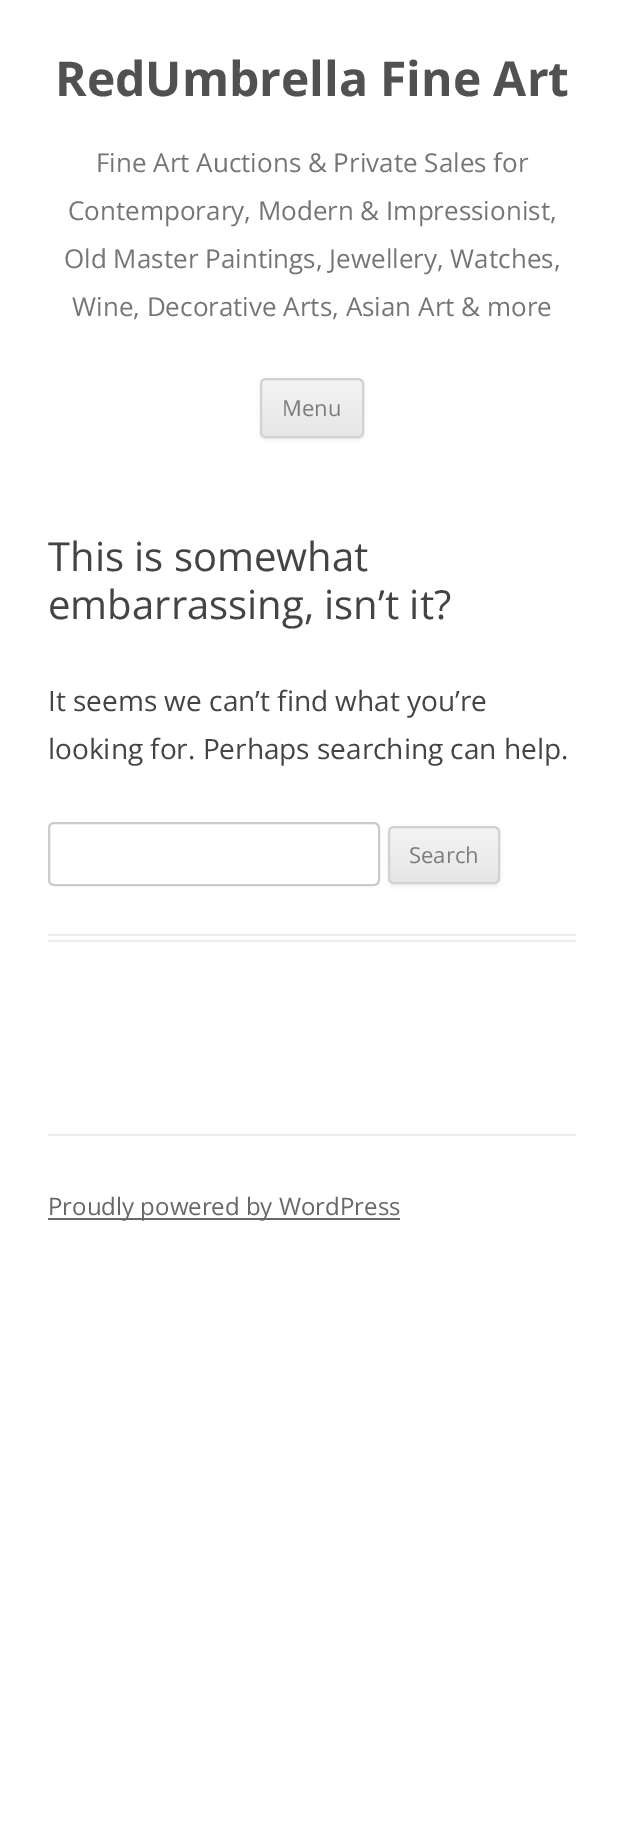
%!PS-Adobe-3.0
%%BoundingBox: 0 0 624 1825
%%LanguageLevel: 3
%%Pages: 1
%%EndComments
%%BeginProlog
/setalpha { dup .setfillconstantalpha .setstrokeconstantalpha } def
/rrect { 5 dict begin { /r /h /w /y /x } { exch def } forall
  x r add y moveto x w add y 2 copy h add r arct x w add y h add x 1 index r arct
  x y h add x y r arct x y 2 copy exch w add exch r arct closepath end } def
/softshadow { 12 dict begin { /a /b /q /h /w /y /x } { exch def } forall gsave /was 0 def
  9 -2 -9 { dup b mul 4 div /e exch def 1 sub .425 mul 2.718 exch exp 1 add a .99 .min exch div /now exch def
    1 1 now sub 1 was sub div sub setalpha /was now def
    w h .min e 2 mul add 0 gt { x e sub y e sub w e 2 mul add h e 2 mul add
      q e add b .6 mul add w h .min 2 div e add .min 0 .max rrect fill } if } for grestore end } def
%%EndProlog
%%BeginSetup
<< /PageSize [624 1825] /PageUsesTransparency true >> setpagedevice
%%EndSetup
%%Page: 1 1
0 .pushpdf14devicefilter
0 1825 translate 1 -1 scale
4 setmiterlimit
1 setgray
0 0 624 1825 rectfill
0.251 setgray
260 380 104 60 6 2 0.1 softshadow
gsave
260 378 104 60 6 rrect clip newpath
gsave newpath 260 380 moveto 364 380 lineto 364 436 lineto 260 436 lineto closepath clip newpath
<< /ShadingType 2 /ColorSpace /DeviceRGB /Coords [312 380 312 436] /Extend [true true] /Function << /FunctionType 2 /Domain [0 1] /C0 [0.957 0.957 0.957] /C1 [0.902 0.902 0.902] /N 1 >> >> shfill grestore
grestore
0.824 setgray
2 setlinewidth
261 379 102 58 5 rrect stroke
0.929 setgray
48 934 528 2 rectfill
48 940 528 2 rectfill
0.8 setgray
49 823 330 62 5 rrect stroke
0.251 setgray
388 828 112 58 6 2 0.1 softshadow
gsave
388 826 112 58 6 rrect clip newpath
gsave newpath 388 828 moveto 500 828 lineto 500 882 lineto 388 882 lineto closepath clip newpath
<< /ShadingType 2 /ColorSpace /DeviceRGB /Coords [444 828 444 882] /Extend [true true] /Function << /FunctionType 2 /Domain [0 1] /C0 [0.957 0.957 0.957] /C1 [0.902 0.902 0.902] /N 1 >> >> shfill grestore
grestore
0.824 setgray
389 827 110 56 5 rrect stroke
0.929 setgray
48 1134 528 2 rectfill
0.408 setgray
48 1218 352 2 rectfill
/OpenSans-Bold [48 0 0 -48 0 0] selectfont
0.318 setgray
55 96 moveto (RedUmbrella Fine Art) show
/OpenSans-Regular [26 0 0 -26 0 0] selectfont
0.459 setgray
96 172 moveto (Fine Art Auctions & Private Sales for) show
68 220 moveto (Contemporary, Modern & Impressionist,) show
64 268 moveto (Old Master Paintings, Jewellery, Watches,) show
72 316 moveto (Wine, Decorative Arts, Asian Art & more) show
/OpenSans-Regular [22 0 0 -22 0 0] selectfont
0.486 setgray
282 416 moveto (Menu) show
/OpenSans-Regular [40 0 0 -40 0 0] selectfont
0.267 setgray
48 571 moveto (This is somewhat) show
48 619 moveto (embarrassing, isn’t it?) show
/OpenSans-Regular [28 0 0 -28 0 0] selectfont
48 711 moveto (It seems we can’t find what you’re) show
48 759 moveto (looking for. Perhaps searching can help.) show
/OpenSans-Regular [22 0 0 -22 0 0] selectfont
0.486 setgray
409 863 moveto (Search) show
/OpenSans-Regular [24 0 0 -24 0 0] selectfont
0.408 setgray
48 1215 moveto (Proudly powered by WordPress) show
.poppdf14devicefilter showpage
%%EOF
